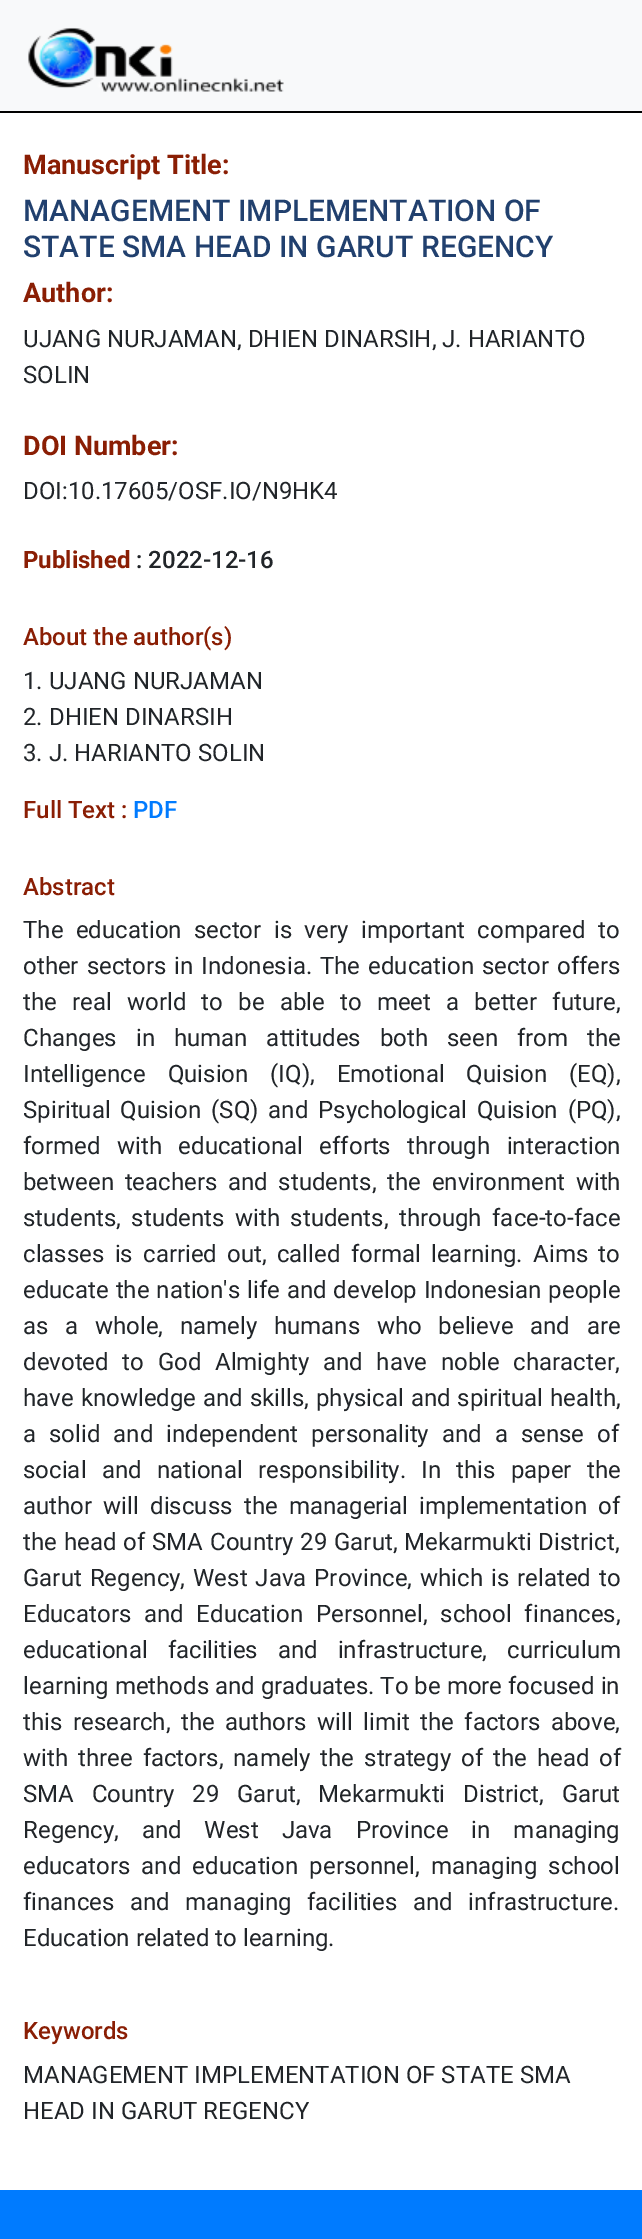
%!PS-Adobe-3.0
%%BoundingBox: 0 0 642 2239
%%LanguageLevel: 3
%%Pages: 1
%%EndComments
%%BeginProlog
/drawimage { 5 dict begin { /h /w /y /x /name } { exch def } forall
  gsave x y translate w h scale
  w h 8 [w 0 0 h 0 0] name (r) file false 3 colorimage grestore end } def
%%EndProlog
%%BeginSetup
<< /PageSize [642 2239] >> setpagedevice
%%EndSetup
%%Page: 1 1
0 2239 translate 1 -1 scale
4 setmiterlimit
1 setgray
0 0 642 2239 rectfill
0.973 0.976 0.98 setrgbcolor
0 0 642 111 rectfill
0 setgray
0 111 642 2 rectfill
(images/1.raw) 28 27 256 65 drawimage
0 0.482 1 setrgbcolor
0 2190 642 49 rectfill
/Roboto-Bold [27 0 0 -27 0 0] selectfont
0.541 0.118 0.016 setrgbcolor
23 174 moveto (Manuscript Title:) show
/Roboto-Medium [30 0 0 -30 0 0] selectfont
0.129 0.251 0.431 setrgbcolor
23 221 moveto (MANAGEMENT IMPLEMENTATION OF) show
23 257 moveto (STATE SMA HEAD IN GARUT REGENCY) show
/Roboto-Bold [27 0 0 -27 0 0] selectfont
0.541 0.118 0.016 setrgbcolor
23 302 moveto (Author:) show
/Roboto-Regular [24 0 0 -24 0 0] selectfont
0.129 0.145 0.161 setrgbcolor
23 347 moveto (UJANG NURJAMAN, DHIEN DINARSIH, J. HARIANTO) show
23 383 moveto (SOLIN) show
/Roboto-Bold [27 0 0 -27 0 0] selectfont
0.541 0.118 0.016 setrgbcolor
23 455 moveto (DOI Number:) show
/Roboto-Regular [24 0 0 -24 0 0] selectfont
0.129 0.145 0.161 setrgbcolor
23 499 moveto (DOI:10.17605/OSF.IO/N9HK4) show
/Roboto-Bold [24 0 0 -24 0 0] selectfont
0.541 0.118 0.016 setrgbcolor
23 568 moveto (Published) show
/Roboto-Medium [24 0 0 -24 0 0] selectfont
0.129 0.145 0.161 setrgbcolor
136 568 moveto (: 2022-12-16) show
0.541 0.118 0.016 setrgbcolor
23 645 moveto (About the author\(s\)) show
/Roboto-Regular [24 0 0 -24 0 0] selectfont
0.129 0.145 0.161 setrgbcolor
23 689 moveto (1. UJANG NURJAMAN) show
23 725 moveto (2. DHIEN DINARSIH) show
23 761 moveto (3. J. HARIANTO SOLIN) show
/Roboto-Medium [24 0 0 -24 0 0] selectfont
0.541 0.118 0.016 setrgbcolor
23 818 moveto (Full Text :) show
0 0.482 1 setrgbcolor
133 818 moveto (PDF) show
0.541 0.118 0.016 setrgbcolor
23 895 moveto (Abstract) show
/Roboto-Regular [24 0 0 -24 0 0] selectfont
0.129 0.145 0.161 setrgbcolor
23 938 moveto 6.5 0 32 (The education sector is very important compared to) widthshow
23 974 moveto 2 0 32 (other sectors in Indonesia. The education sector offers) widthshow
23 1010 moveto 9.25 0 32 (the real world to be able to meet a better future,) widthshow
23 1046 moveto 13 0 32 (Changes in human attitudes both seen from the) widthshow
23 1082 moveto 16 0 32 (Intelligence Quision \(IQ\), Emotional Quision \(EQ\),) widthshow
23 1118 moveto 4 0 32 (Spiritual Quision \(SQ\) and Psychological Quision \(PQ\),) widthshow
23 1154 moveto 10.5 0 32 (formed with educational efforts through interaction) widthshow
23 1190 moveto 4.75 0 32 (between teachers and students, the environment with) widthshow
23 1226 moveto 4.5 0 32 (students, students with students, through face-to-face) widthshow
23 1262 moveto 4.25 0 32 (classes is carried out, called formal learning. Aims to) widthshow
23 1298 moveto 1 0 32 (educate the nation's life and develop Indonesian people) widthshow
23 1334 moveto 10.75 0 32 (as a whole, namely humans who believe and are) widthshow
23 1370 moveto 7.75 0 32 (devoted to God Almighty and have noble character,) widthshow
23 1406 moveto 1 0 32 (have knowledge and skills, physical and spiritual health,) widthshow
23 1442 moveto 7 0 32 (a solid and independent personality and a sense of) widthshow
23 1478 moveto 9.25 0 32 (social and national responsibility. In this paper the) widthshow
23 1514 moveto 5.25 0 32 (author will discuss the managerial implementation of) widthshow
23 1550 moveto 1 0 32 (the head of SMA Country 29 Garut, Mekarmukti District,) widthshow
23 1586 moveto 2 0 32 (Garut Regency, West Java Province, which is related to) widthshow
23 1622 moveto 6.75 0 32 (Educators and Education Personnel, school finances,) widthshow
23 1658 moveto 14 0 32 (educational facilities and infrastructure, curriculum) widthshow
23 1694 moveto (learning methods and graduates. To be more focused in) show
23 1730 moveto 4.5 0 32 (this research, the authors will limit the factors above,) widthshow
23 1766 moveto 4 0 32 (with three factors, namely the strategy of the head of) widthshow
23 1802 moveto 11.75 0 32 (SMA Country 29 Garut, Mekarmukti District, Garut) widthshow
23 1838 moveto 17 0 32 (Regency, and West Java Province in managing) widthshow
23 1874 moveto 5.25 0 32 (educators and education personnel, managing school) widthshow
23 1910 moveto 9.5 0 32 (finances and managing facilities and infrastructure.) widthshow
23 1946 moveto (Education related to learning.) show
/Roboto-Medium [24 0 0 -24 0 0] selectfont
0.541 0.118 0.016 setrgbcolor
23 2039 moveto (Keywords) show
/Roboto-Regular [24 0 0 -24 0 0] selectfont
0.129 0.145 0.161 setrgbcolor
23 2083 moveto (MANAGEMENT IMPLEMENTATION OF STATE SMA) show
23 2119 moveto (HEAD IN GARUT REGENCY) show
showpage
%%EOF
